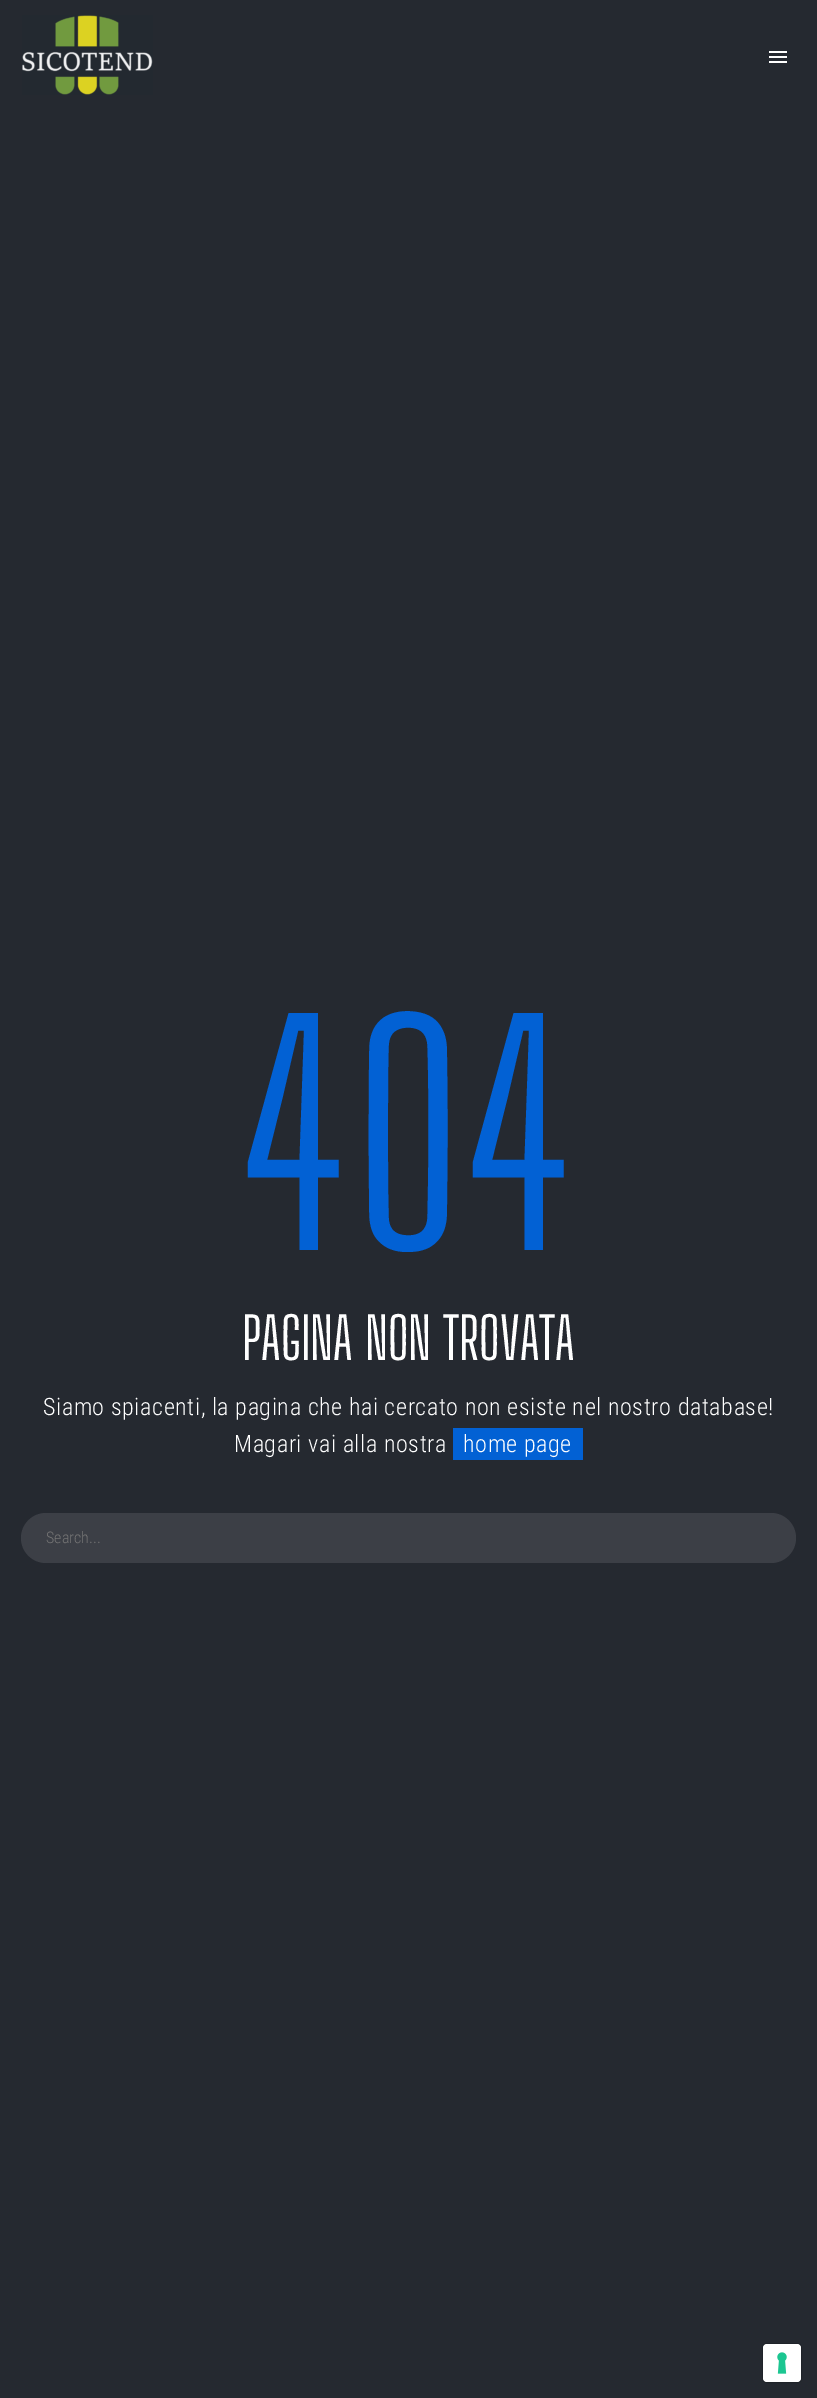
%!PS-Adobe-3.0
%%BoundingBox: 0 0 817 2398
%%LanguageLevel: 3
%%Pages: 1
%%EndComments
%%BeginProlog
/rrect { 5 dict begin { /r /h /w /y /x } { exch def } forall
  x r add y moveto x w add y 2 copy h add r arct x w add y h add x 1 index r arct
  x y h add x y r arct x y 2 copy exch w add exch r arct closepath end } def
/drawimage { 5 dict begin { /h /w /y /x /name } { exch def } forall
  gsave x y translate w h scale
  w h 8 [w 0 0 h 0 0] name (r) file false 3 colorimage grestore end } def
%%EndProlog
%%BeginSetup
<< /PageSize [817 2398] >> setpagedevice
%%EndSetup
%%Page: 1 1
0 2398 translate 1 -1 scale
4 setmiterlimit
0.145 0.161 0.188 setrgbcolor
0 0 817 2398 rectfill
(images/1.raw) 22 15 131 80 drawimage
1 setgray
769 51 18 2 rectfill
769 56 18 2 rectfill
769 61 18 2 rectfill
0.008 0.38 0.831 setrgbcolor
453 1428 130 32 rectfill
0.235 0.247 0.275 setrgbcolor
21 1513 775 50 25 rrect fill
0.122 0.137 0.161 setrgbcolor
762.5 2343.5 39 39 4.5 rrect stroke
1 setgray
763 2344 38 38 4 rrect fill
(images/2.raw) 777 2352 10 22 drawimage
/BigShouldersDisplay-Regular [297 0 0 -297 0 0] selectfont
0.008 0.38 0.831 setrgbcolor
239 1250 moveto (404) show
/BigShouldersDisplay-Regular [57.25 0 0 -57.25 0 0] selectfont
1 setgray
242 1360 moveto (PAGINA NON TROVATA) show
/RobotoCondensed-Light [24 0 0 -24 0 0] selectfont
43 1415 moveto 0.6 0 (Siamo spiacenti, la pagina che hai cercato non esiste nel nostro database!) ashow
234 1452 moveto 0.6 0 (Magari vai alla nostra) ashow
463 1452 moveto 0.6 0 (home page) ashow
/RobotoCondensed-Light [16 0 0 -16 0 0] selectfont
0.459 setgray
46 1543 moveto (Search...) show
showpage
%%EOF
